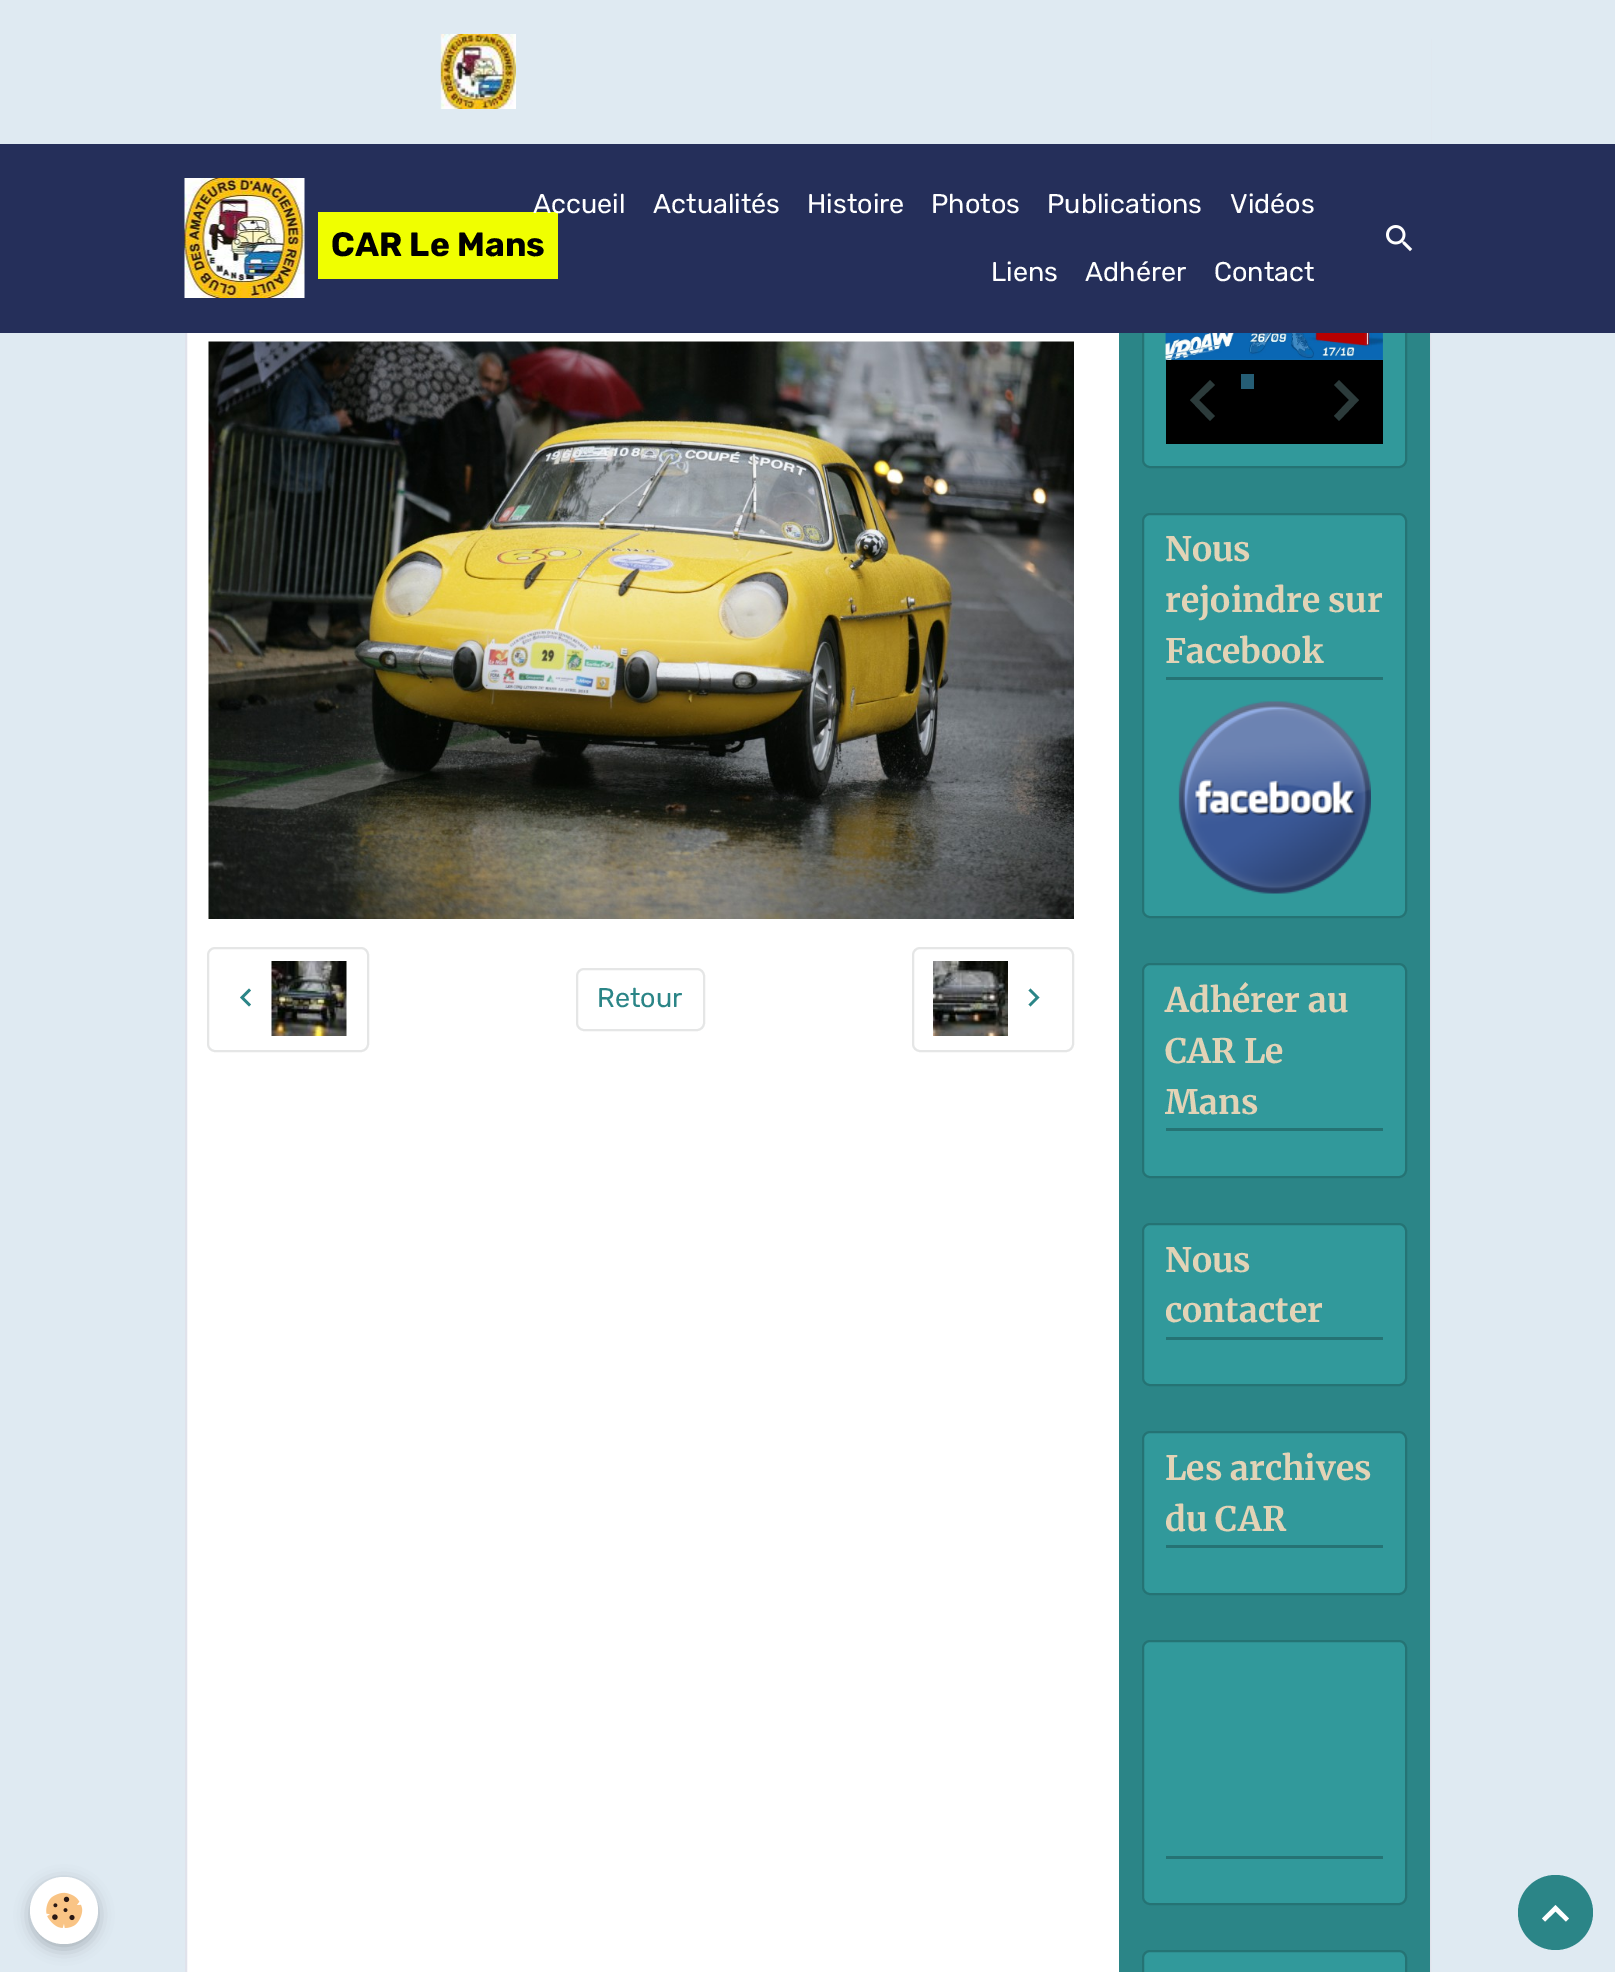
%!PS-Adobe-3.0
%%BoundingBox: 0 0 1615 1972
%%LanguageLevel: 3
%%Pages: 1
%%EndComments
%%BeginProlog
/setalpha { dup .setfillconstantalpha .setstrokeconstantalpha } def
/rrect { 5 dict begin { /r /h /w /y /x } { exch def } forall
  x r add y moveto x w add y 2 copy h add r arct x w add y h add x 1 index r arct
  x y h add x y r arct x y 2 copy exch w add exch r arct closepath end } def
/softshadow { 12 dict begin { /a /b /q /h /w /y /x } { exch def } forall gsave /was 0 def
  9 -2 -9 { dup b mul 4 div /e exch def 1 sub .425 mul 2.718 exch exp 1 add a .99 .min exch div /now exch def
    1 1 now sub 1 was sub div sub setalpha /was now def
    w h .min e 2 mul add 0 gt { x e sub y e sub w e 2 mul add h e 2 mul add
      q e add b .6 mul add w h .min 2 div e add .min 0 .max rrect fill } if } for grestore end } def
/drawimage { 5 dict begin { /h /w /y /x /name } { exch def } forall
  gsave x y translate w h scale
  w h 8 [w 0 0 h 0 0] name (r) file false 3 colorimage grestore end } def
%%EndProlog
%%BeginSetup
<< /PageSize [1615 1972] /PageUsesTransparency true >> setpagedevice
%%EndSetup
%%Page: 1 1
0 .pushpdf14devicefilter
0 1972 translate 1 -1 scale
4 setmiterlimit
0.875 0.918 0.949 setrgbcolor
0 0 1615 1972 rectfill
1 setgray
187 333 932 1639 rectfill
0.878 0.886 0.922 setrgbcolor
2 setlinewidth
186 40 1244 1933 rectstroke
0.169 0.522 0.529 setrgbcolor
1119 333 311 1639 rectfill
0.192 0.6 0.608 setrgbcolor
1143 64 263 403 7 rrect gsave fill grestore
0.145 0.451 0.455 setrgbcolor
stroke
0.875 0.918 0.949 setrgbcolor
185 39 1246 105 rectfill
(images/1.raw) 440 34 76 75 drawimage
0.145 0.184 0.353 setrgbcolor
0 144 1615 189 rectfill
(images/2.raw) 184 178 121 120 drawimage
0.941 1 0 setrgbcolor
318 212 240 67 rectfill
(images/3.raw) 1386 225 27 27 drawimage
(images/4.raw) 208 341 866 578 drawimage
0.898 0.902 0.902 setrgbcolor
208 948 160 103 7 rrect stroke
0.169 0.522 0.529 setrgbcolor
newpath 251 990.5 moveto 244 997.5 lineto 251 1004.5 lineto 249 1006.5 lineto 240 997.5 lineto 249 988.5 lineto closepath fill
(images/5.raw) 271 961 76 75 drawimage
0.898 0.902 0.902 setrgbcolor
577 969 127 61 7 rrect stroke
913 948 160 103 7 rrect stroke
(images/6.raw) 933 961 75 75 drawimage
0.169 0.522 0.529 setrgbcolor
newpath 1030.5 988.5 moveto 1039.5 997.5 lineto 1030.5 1006.5 lineto 1028.5 1004.5 lineto 1035.5 997.5 lineto 1028.5 990.5 lineto closepath fill
(images/7.raw) 1165 333 218 27 drawimage
0 setgray
1166 360 217 84 rectfill
0.173 0.231 0.231 setrgbcolor
newpath 1215 385 moveto 1199 400 lineto 1215 416 lineto 1210 421 lineto 1190 400 lineto 1210 380 lineto closepath fill
0.145 0.365 0.455 setrgbcolor
1241 374 13 15 rectfill
0.173 0.231 0.231 setrgbcolor
newpath 1339 380 moveto 1359 400 lineto 1339 421 lineto 1334 416 lineto 1349 400 lineto 1334 385 lineto closepath fill
0.192 0.6 0.608 setrgbcolor
1143 514 263 403 7 rrect gsave fill grestore
0.145 0.451 0.455 setrgbcolor
stroke
1166 677 217 3 rectfill
(images/8.raw) 1178 701 193 193 drawimage
0.192 0.6 0.608 setrgbcolor
1143 964 263 213 7 rrect gsave fill grestore
0.145 0.451 0.455 setrgbcolor
stroke
1166 1128 217 3 rectfill
0.192 0.6 0.608 setrgbcolor
1143 1224 263 161 7 rrect gsave fill grestore
0.145 0.451 0.455 setrgbcolor
stroke
1166 1337 217 3 rectfill
0.192 0.6 0.608 setrgbcolor
1143 1432 263 162 7 rrect gsave fill grestore
0.145 0.451 0.455 setrgbcolor
stroke
1166 1545 217 3 rectfill
0.192 0.6 0.608 setrgbcolor
1143 1641 263 263 7 rrect gsave fill grestore
0.145 0.451 0.455 setrgbcolor
stroke
1166 1856 217 3 rectfill
0.192 0.6 0.608 setrgbcolor
1143 1951 263 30 7 rrect gsave fill grestore
0.145 0.451 0.455 setrgbcolor
stroke
0 setgray
30 1881 68 68 34 7.5 0.24 softshadow
1 setgray
30 1877 68 67 33.5 rrect fill
(images/9.raw) 46 1892 37 36 drawimage
0.169 0.522 0.529 setrgbcolor
newpath 1555.5 1912.5 37.5 0 360 arc closepath fill
1 setgray
newpath 1555.5 1905 moveto 1569 1918.5 lineto 1566 1921.5 lineto 1555.5 1911.5 lineto 1545 1921.5 lineto 1542 1918.5 lineto closepath fill
/Rubik-Bold [33.75 0 0 -33.75 0 0] selectfont
0 setgray
331 256 moveto (CAR Le Mans) show
/Rubik-Regular [27 0 0 -27 0 0] selectfont
1 setgray
533 213 moveto (Accueil) show
653 213 moveto (Actualités) show
807 213 moveto (Histoire) show
931 213 moveto (Photos) show
1047 213 moveto (Publications) show
1230 213 moveto (Vidéos) show
991 281 moveto (Liens) show
1085 281 moveto (Adhérer) show
1214 281 moveto (Contact) show
0.169 0.522 0.529 setrgbcolor
597 1007 moveto (Retour) show
/Merriweather-Bold [33.75 0 0 -33.75 0 0] selectfont
0.886 0.827 0.714 setrgbcolor
1165 561 moveto (Nous) show
1165 612 moveto (rejoindre sur) show
1165 663 moveto (Facebook) show
1165 1012 moveto (Adhérer au) show
1165 1063 moveto (CAR Le) show
1165 1114 moveto (Mans) show
1165 1272 moveto (Nous) show
1165 1322 moveto (contacter) show
1165 1480 moveto (Les archives) show
1165 1531 moveto (du CAR) show
.poppdf14devicefilter showpage
%%EOF
